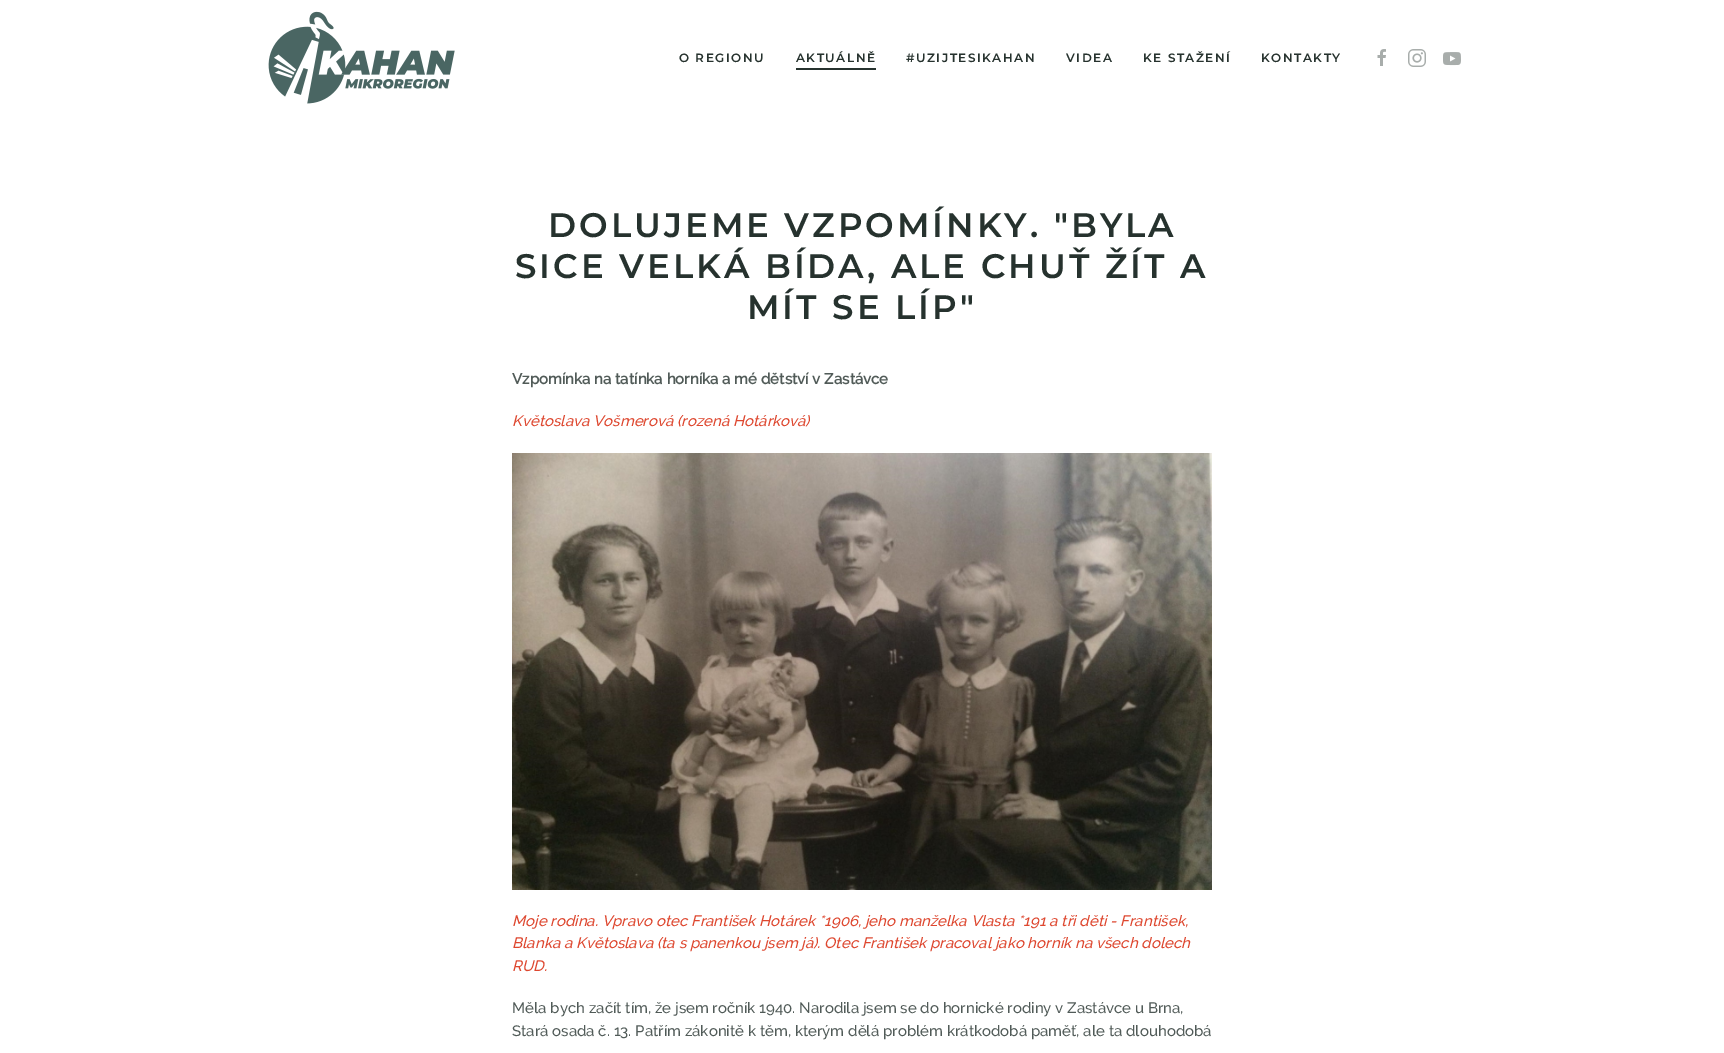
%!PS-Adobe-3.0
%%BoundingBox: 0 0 1724 1053
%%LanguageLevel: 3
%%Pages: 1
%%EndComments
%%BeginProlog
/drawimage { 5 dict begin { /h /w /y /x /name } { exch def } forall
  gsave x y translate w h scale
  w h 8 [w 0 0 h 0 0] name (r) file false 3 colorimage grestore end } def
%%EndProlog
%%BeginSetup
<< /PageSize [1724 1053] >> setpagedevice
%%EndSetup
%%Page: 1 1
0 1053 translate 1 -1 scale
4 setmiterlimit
1 setgray
0 0 1724 1053 rectfill
(images/1.raw) 268 11 187 93 drawimage
0.149 0.196 0.18 setrgbcolor
796 68 80 2 rectfill
(images/2.raw) 1377 49 9 17 drawimage
(images/3.raw) 1408 49 18 18 drawimage
(images/4.raw) 1443 52 18 14 drawimage
(images/5.raw) 512 453 700 437 drawimage
/Montserrat-SemiBold [12 0 0 -12 0 0] selectfont
679 62 moveto 1.5 0 (O REGIONU) ashow
796 62 moveto 1.5 0 (AKTUÁLNĚ) ashow
906 62 moveto 1.5 0 (#UZIJTESIKAHAN) ashow
1066 62 moveto 1.5 0 (VIDEA) ashow
1143 62 moveto 1.5 0 (KE STAŽENÍ) ashow
1261 62 moveto 1.5 0 (KONTAKTY) ashow
/Montserrat-SemiBold [34 0 0 -34 0 0] selectfont
548 237 moveto 3 0 (DOLUJEME VZPOMÍNKY. "BYLA) ashow
515 278 moveto 3 0 (SICE VELKÁ BÍDA, ALE CHUŤ ŽÍT A) ashow
747 319 moveto 3 0 (MÍT SE LÍP") ashow
/Raleway-Bold [15 0 0 -15 0 0] selectfont
0.318 0.357 0.345 setrgbcolor
512 384 moveto (Vzpomínka na tatínka horníka a mé dětství v Zastávce) show
/Raleway-MediumItalic [15 0 0 -15 0 0] selectfont
0.871 0.278 0.184 setrgbcolor
512 426 moveto (Květoslava Vošmerová \(rozená Hotárková\)) show
512 926 moveto (Moje rodina. Vpravo otec František Hotárek *1906, jeho manželka Vlasta *191 a tři děti - František,) show
512 948 moveto (Blanka a Květoslava \(ta s panenkou jsem já\). Otec František pracoval jako horník na všech dolech) show
512 971 moveto (RUD.) show
/Raleway-Medium [15 0 0 -15 0 0] selectfont
0.318 0.357 0.345 setrgbcolor
512 1013 moveto (Měla bych začít tím, že jsem ročník 1940. Narodila jsem se do hornické rodiny v Zastávce u Brna,) show
512 1036 moveto (Stará osada č. 13. Patřím zákonitě k těm, kterým dělá problém krátkodobá paměť, ale ta dlouhodobá) show
showpage
%%EOF
